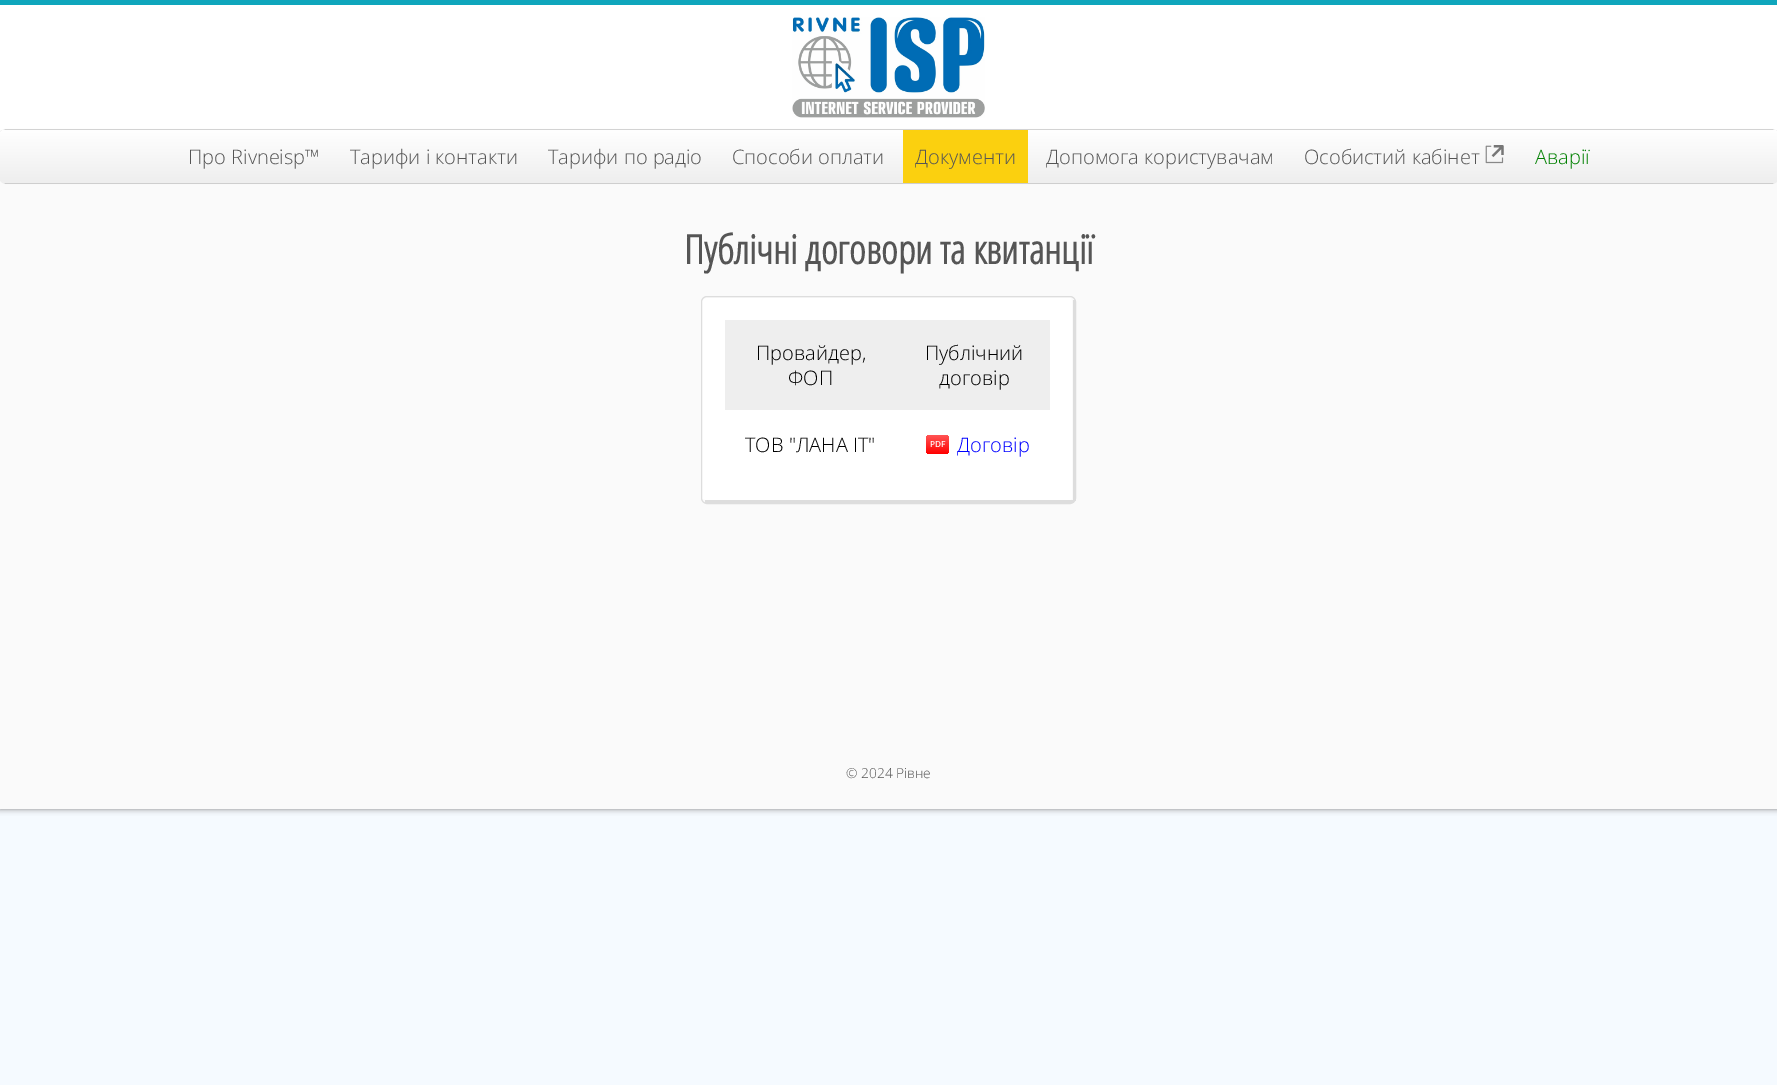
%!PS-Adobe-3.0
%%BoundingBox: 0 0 1777 1085
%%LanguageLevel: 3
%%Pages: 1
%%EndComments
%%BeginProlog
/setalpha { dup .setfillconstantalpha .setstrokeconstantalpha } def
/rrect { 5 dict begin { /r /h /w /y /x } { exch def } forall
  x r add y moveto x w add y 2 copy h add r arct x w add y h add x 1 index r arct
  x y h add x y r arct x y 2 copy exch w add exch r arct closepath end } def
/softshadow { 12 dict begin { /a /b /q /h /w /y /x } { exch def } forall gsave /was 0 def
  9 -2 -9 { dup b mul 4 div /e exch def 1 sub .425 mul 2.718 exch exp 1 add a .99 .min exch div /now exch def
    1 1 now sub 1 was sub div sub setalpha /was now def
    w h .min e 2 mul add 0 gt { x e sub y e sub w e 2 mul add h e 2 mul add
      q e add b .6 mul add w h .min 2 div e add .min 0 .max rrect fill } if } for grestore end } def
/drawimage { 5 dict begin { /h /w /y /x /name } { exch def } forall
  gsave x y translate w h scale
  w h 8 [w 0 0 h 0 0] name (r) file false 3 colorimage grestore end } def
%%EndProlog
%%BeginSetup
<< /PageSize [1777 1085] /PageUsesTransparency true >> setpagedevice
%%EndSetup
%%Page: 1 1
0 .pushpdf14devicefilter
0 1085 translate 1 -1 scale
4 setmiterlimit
0.961 0.98 1 setrgbcolor
0 0 1777 1085 rectfill
0.502 setgray
0 0 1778 809 0 3 1 softshadow
0.98 setgray
0 130 1777 679 rectfill
1 setgray
0 5 1777 125 rectfill
0.059 0.651 0.737 setrgbcolor
0 0 1777 5 rectfill
(images/1.raw) 792 17 193 101 drawimage
0.333 setgray
0 130 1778 53 6 0.5 1 softshadow
gsave 0 130 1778 53 6 rrect clip newpath
<< /ShadingType 2 /ColorSpace /DeviceRGB /Coords [889 130 889 183] /Extend [true true] /Function << /FunctionType 2 /Domain [0 1] /C0 [1 1 1] /C1 [0.933 0.933 0.933] /N 1 >> >> shfill grestore
0.984 0.816 0.059 setrgbcolor
903 130 125 53 rectfill
(images/2.raw) 1485 145 19 19 drawimage
1 setgray
newpath 708 298 moveto 1070 298 lineto 1071 298 1072 300 1072 302 curveto 1072 498 lineto 1072 499 1071 500 1070 500 curveto 708 500 lineto 705 500 702 499 702 498 curveto 702 302 lineto 702 300 705 298 708 298 curveto closepath fill
0.867 setgray
701.5 296.5 374 207 5.5 rrect stroke
1073 300 3 201 rectfill
705 500 369 3 rectfill
0.933 setgray
725 320 325 90 rectfill
gsave 926 435 23 19 4 rrect clip newpath
<< /ShadingType 2 /ColorSpace /DeviceRGB /Coords [938 435 938 454] /Extend [true true] /Function << /FunctionType 2 /Domain [0 1] /C0 [1 0.333 0.333] /C1 [1 0 0] /N 1 >> >> shfill grestore
/OpenSans-Light [20 0 0 -20 0 0] selectfont
0.333 setgray
188 164 moveto (Про Rivneisp™) show
350 164 moveto (Тарифи і контакти) show
548 164 moveto (Тарифи по радіо) show
732 164 moveto (Способи оплати) show
915 164 moveto (Документи) show
1046 164 moveto (Допомога користувачам) show
1304 164 moveto (Особистий кабінет) show
0 0.502 0 setrgbcolor
1535 164 moveto (Аварії) show
/OpenSansCondensed-Bold [40 0 0 -40 0 0] selectfont
0.333 setgray
684 264 moveto (Публічні договори та квитанції) show
/OpenSans-Light [20 0 0 -20 0 0] selectfont
0 setgray
756 360 moveto (Провайдер,) show
788 385 moveto (ФОП) show
925 360 moveto (Публічний) show
939 385 moveto (договір) show
745 452 moveto (ТОВ "ЛАНА ІТ") show
/OpenSans-Bold [8 0 0 -8 0 0] selectfont
1 setgray
930 447 moveto (PDF) show
/OpenSans-Light [20 0 0 -20 0 0] selectfont
0 0 1 setrgbcolor
957 452 moveto (Договір) show
/OpenSans-Light [13.75 0 0 -13.75 0 0] selectfont
0.333 setgray
846 778 moveto (© 2024 Рівне) show
.poppdf14devicefilter showpage
%%EOF
